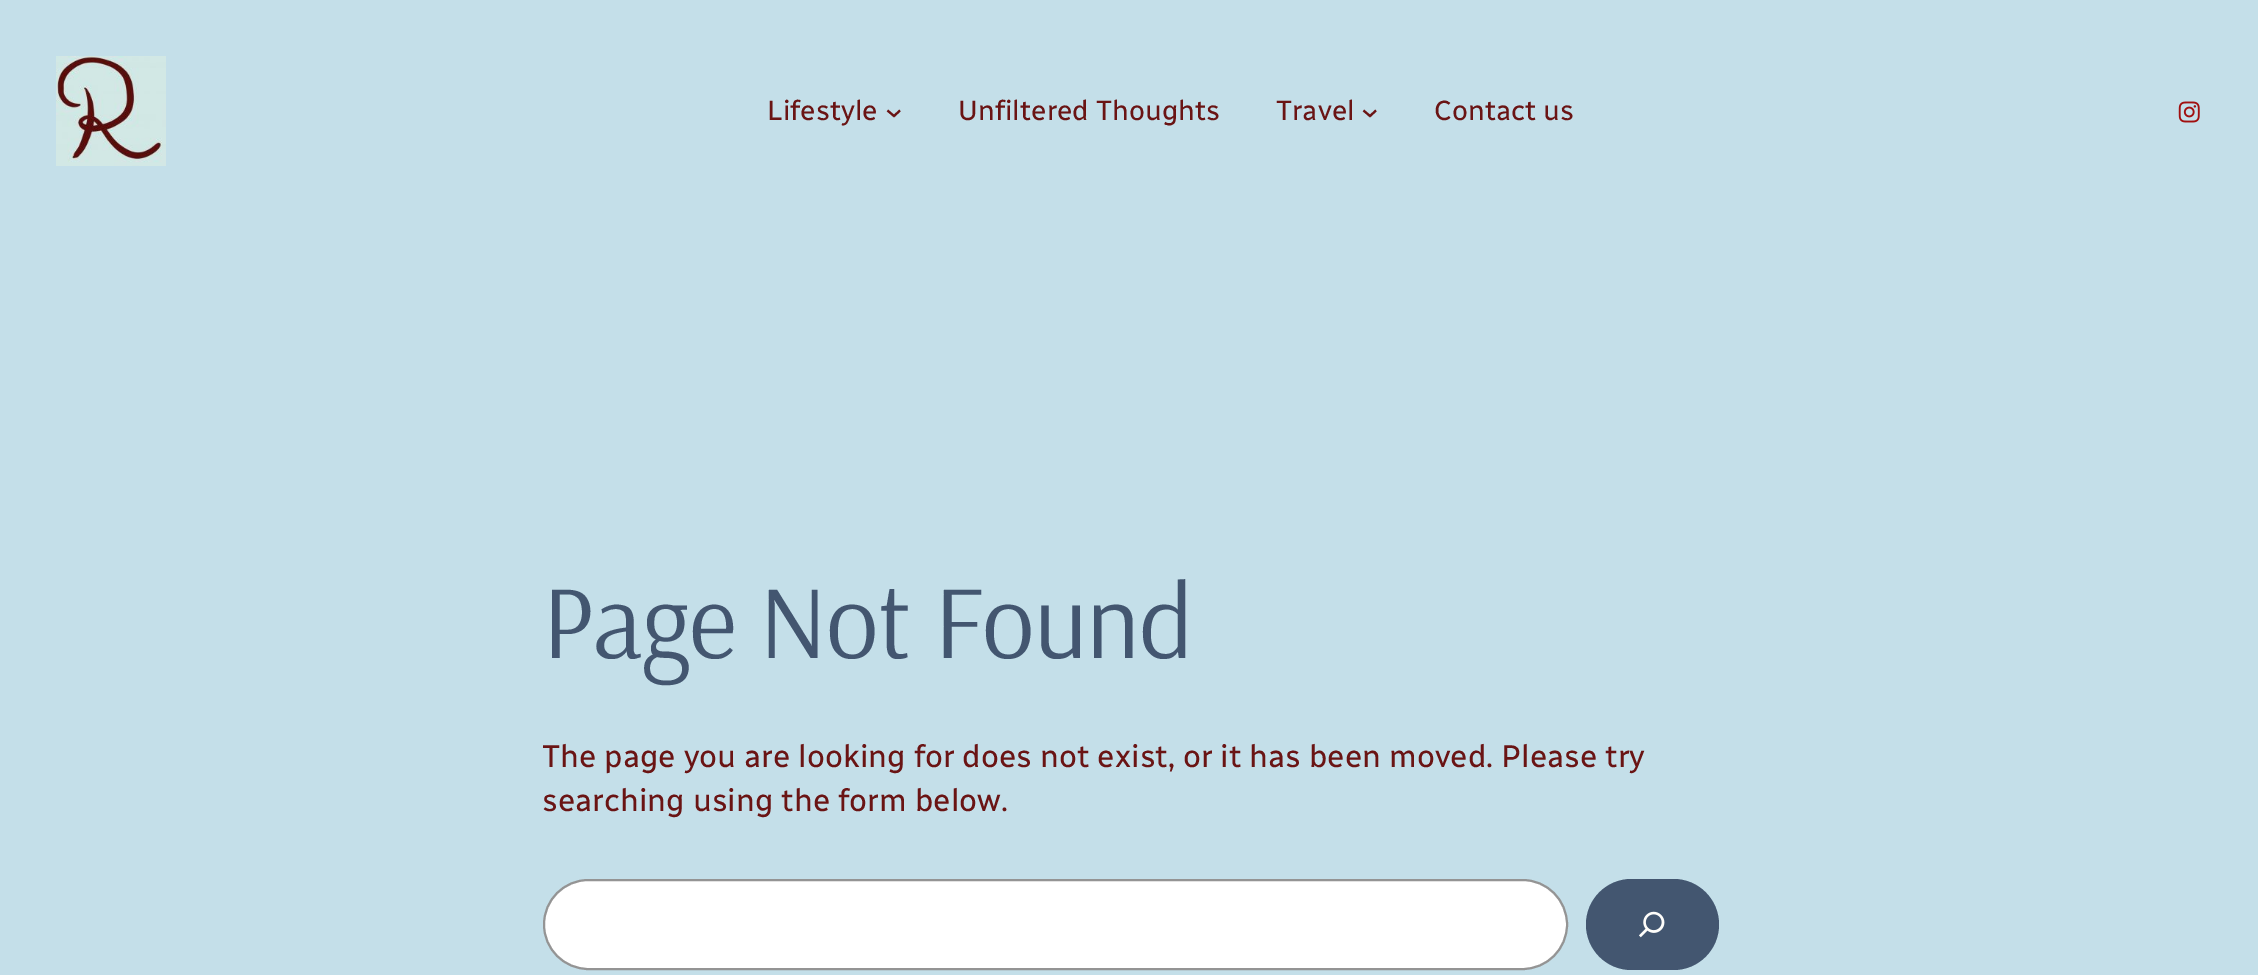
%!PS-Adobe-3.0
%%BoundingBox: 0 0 2258 975
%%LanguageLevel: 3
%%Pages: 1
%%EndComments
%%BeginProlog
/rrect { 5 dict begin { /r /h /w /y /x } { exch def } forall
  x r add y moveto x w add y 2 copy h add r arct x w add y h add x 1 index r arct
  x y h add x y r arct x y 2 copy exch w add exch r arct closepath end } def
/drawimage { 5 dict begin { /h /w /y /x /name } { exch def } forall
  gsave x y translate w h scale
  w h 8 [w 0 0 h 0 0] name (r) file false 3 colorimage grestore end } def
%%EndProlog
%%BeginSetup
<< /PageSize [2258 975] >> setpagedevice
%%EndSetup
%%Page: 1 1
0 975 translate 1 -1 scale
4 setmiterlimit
0.769 0.875 0.914 setrgbcolor
0 0 2258 975 rectfill
(images/1.raw) 56 56 110 110 drawimage
0.416 0.078 0.078 setrgbcolor
2.1 setlinewidth
newpath 887.5 110.5 moveto 894 116 lineto 900 110.5 lineto stroke
newpath 1363.5 110.5 moveto 1370 116 lineto 1376 110.5 lineto stroke
(images/2.raw) 2178 101 22 22 drawimage
1 setgray
544 880 1023 89 44.5 rrect gsave fill grestore
0.58 setgray
2 setlinewidth
stroke
0.263 0.337 0.439 setrgbcolor
1586 879 133 91 45.5 rrect fill
(images/3.raw) 1639 911 26 27 drawimage
/RadioCanada-Regular [28 0 0 -28 0 0] selectfont
0.416 0.078 0.078 setrgbcolor
767 120 moveto (Lifestyle) show
958 120 moveto (Unfiltered Thoughts) show
1276 120 moveto (Travel) show
1434 120 moveto (Contact us) show
/Arsenal-Regular [105 0 0 -105 0 0] selectfont
0.263 0.337 0.439 setrgbcolor
542 658 moveto -1 0 (Page Not Found) ashow
/RadioCanada-Regular [31.5 0 0 -31.5 0 0] selectfont
0.416 0.078 0.078 setrgbcolor
542 767 moveto (The page you are looking for does not exist, or it has been moved. Please try) show
542 811 moveto (searching using the form below.) show
showpage
%%EOF
